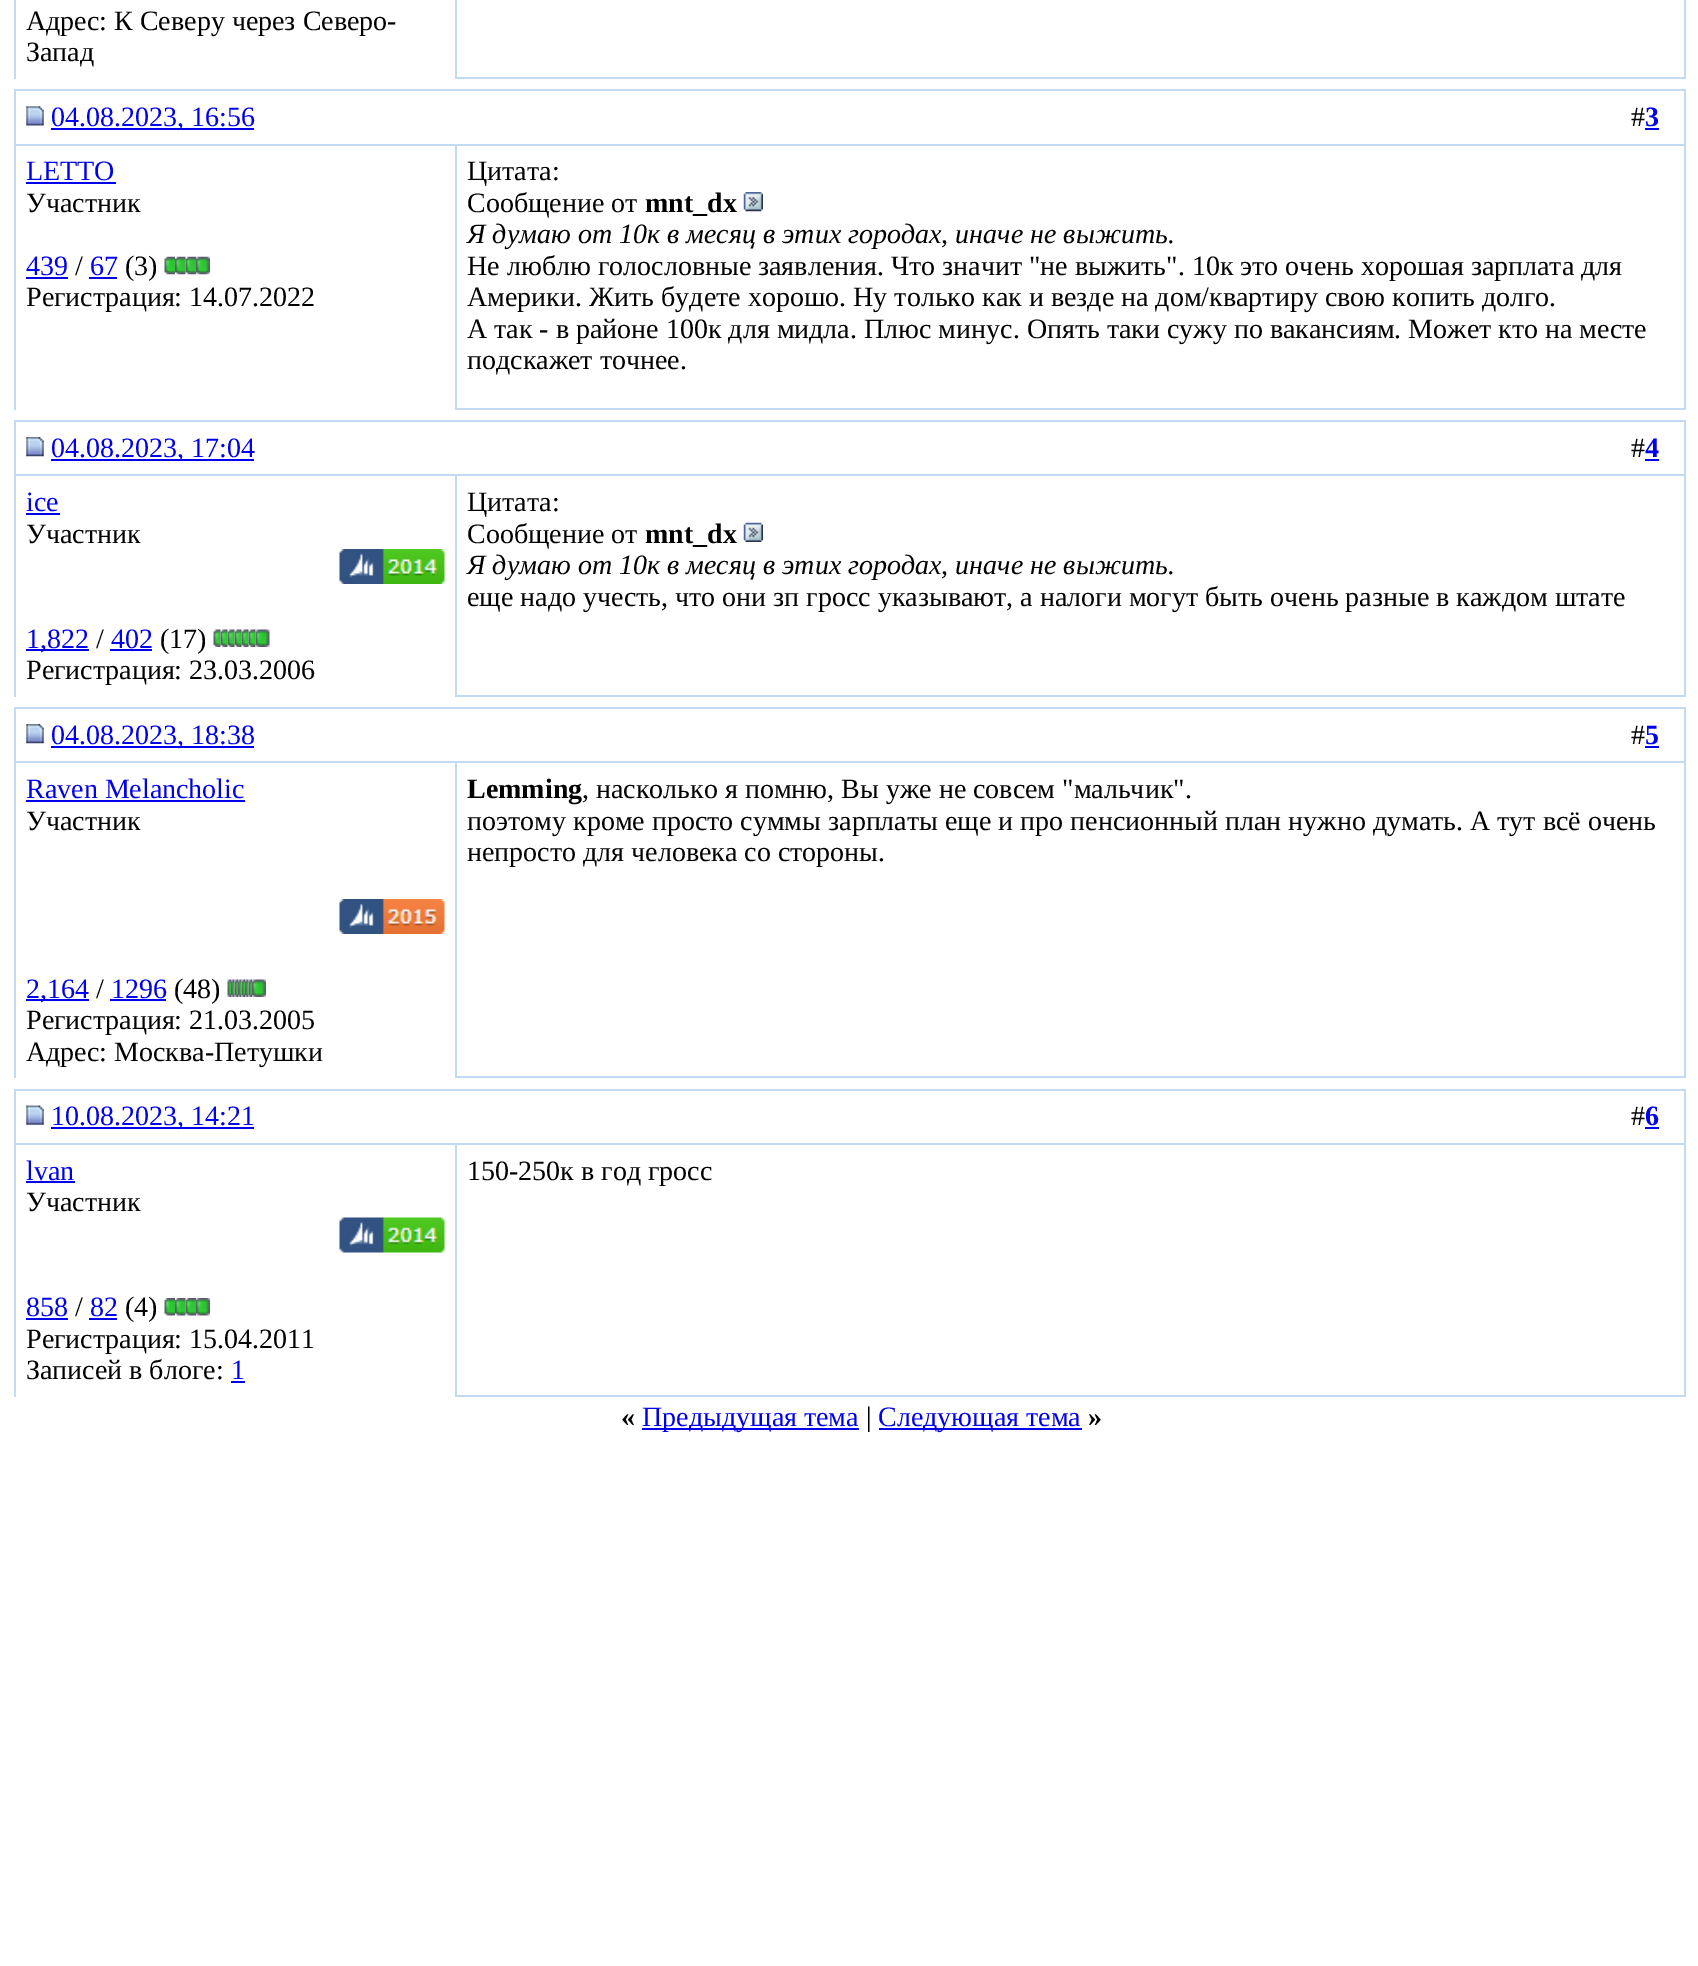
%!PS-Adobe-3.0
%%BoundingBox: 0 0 1698 1966
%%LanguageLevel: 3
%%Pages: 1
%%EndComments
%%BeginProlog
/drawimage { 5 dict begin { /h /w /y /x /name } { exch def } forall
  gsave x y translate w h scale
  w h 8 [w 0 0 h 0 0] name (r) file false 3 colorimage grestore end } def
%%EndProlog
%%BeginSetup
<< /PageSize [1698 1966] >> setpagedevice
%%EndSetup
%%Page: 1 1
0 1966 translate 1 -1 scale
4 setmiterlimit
1 setgray
0 0 1698 1966 rectfill
0.761 0.859 0.949 setrgbcolor
455 0 2 79 rectfill
14 0 2 79 rectfill
1684 0 2 79 rectfill
457 77 1228 2 rectfill
14 89 1671 2 rectfill
14 144 443 2 rectfill
14 89 2 321 rectfill
(images/1.raw) 26 106 18 20 drawimage
0 0 0.933 setrgbcolor
51 128 203 2 rectfill
0.761 0.859 0.949 setrgbcolor
1684 89 2 56 rectfill
457 144 1228 2 rectfill
0 0 0.933 setrgbcolor
1645 128 14 2 rectfill
0.761 0.859 0.949 setrgbcolor
455 145 2 265 rectfill
0 0 0.933 setrgbcolor
26 182 90 2 rectfill
26 277 42 2 rectfill
89 277 28 2 rectfill
(images/2.raw) 164 256 11 19 drawimage
(images/3.raw) 175 256 11 19 drawimage
(images/4.raw) 185 256 11 19 drawimage
(images/5.raw) 196 256 14 19 drawimage
0.761 0.859 0.949 setrgbcolor
1684 145 2 265 rectfill
(images/6.raw) 743 192 20 20 drawimage
457 408 1228 2 rectfill
14 420 1671 2 rectfill
14 474 443 2 rectfill
14 420 2 277 rectfill
(images/7.raw) 26 437 18 20 drawimage
0 0 0.933 setrgbcolor
51 459 203 2 rectfill
0.761 0.859 0.949 setrgbcolor
1684 420 2 277 rectfill
457 474 1228 2 rectfill
0 0 0.933 setrgbcolor
1645 459 14 2 rectfill
0.761 0.859 0.949 setrgbcolor
455 476 2 221 rectfill
0 0 0.933 setrgbcolor
26 513 34 2 rectfill
(images/8.raw) 339 549 106 35 drawimage
26 649 63 2 rectfill
110 649 42 2 rectfill
(images/9.raw) 213 629 8 18 drawimage
(images/10.raw) 220 629 8 18 drawimage
(images/10.raw) 227 629 8 18 drawimage
(images/10.raw) 234 629 8 18 drawimage
(images/10.raw) 241 629 8 18 drawimage
(images/10.raw) 248 629 8 18 drawimage
(images/11.raw) 255 629 15 18 drawimage
(images/12.raw) 743 522 20 20 drawimage
0.761 0.859 0.949 setrgbcolor
457 695 1228 2 rectfill
14 707 1671 2 rectfill
14 761 443 2 rectfill
14 707 2 371 rectfill
(images/7.raw) 26 724 18 20 drawimage
0 0 0.933 setrgbcolor
51 746 203 2 rectfill
0.761 0.859 0.949 setrgbcolor
1684 707 2 371 rectfill
457 761 1228 2 rectfill
0 0 0.933 setrgbcolor
1645 746 14 2 rectfill
0.761 0.859 0.949 setrgbcolor
455 763 2 315 rectfill
0 0 0.933 setrgbcolor
26 800 219 2 rectfill
(images/13.raw) 339 899 106 35 drawimage
26 999 63 2 rectfill
110 999 56 2 rectfill
(images/14.raw) 227 979 4 18 drawimage
(images/15.raw) 231 979 4 18 drawimage
(images/16.raw) 234 979 4 18 drawimage
(images/15.raw) 238 979 4 18 drawimage
(images/16.raw) 241 979 4 18 drawimage
(images/15.raw) 245 979 4 18 drawimage
(images/16.raw) 248 979 4 18 drawimage
(images/17.raw) 252 979 14 18 drawimage
0.761 0.859 0.949 setrgbcolor
457 1076 1228 2 rectfill
14 1089 1671 2 rectfill
14 1143 443 2 rectfill
14 1089 2 308 rectfill
(images/18.raw) 26 1105 18 20 drawimage
0 0 0.933 setrgbcolor
51 1127 203 2 rectfill
0.761 0.859 0.949 setrgbcolor
1684 1089 2 308 rectfill
457 1143 1228 2 rectfill
0 0 0.933 setrgbcolor
1645 1127 14 2 rectfill
0.761 0.859 0.949 setrgbcolor
455 1145 2 252 rectfill
0 0 0.933 setrgbcolor
26 1181 49 2 rectfill
(images/19.raw) 339 1217 106 36 drawimage
26 1318 42 2 rectfill
89 1318 28 2 rectfill
(images/20.raw) 164 1298 11 18 drawimage
(images/21.raw) 175 1298 11 18 drawimage
(images/22.raw) 185 1298 11 18 drawimage
(images/23.raw) 196 1298 14 18 drawimage
231 1381 14 2 rectfill
0.761 0.859 0.949 setrgbcolor
457 1395 1228 2 rectfill
0 0 0.933 setrgbcolor
642 1428 217 2 rectfill
879 1428 203 2 rectfill
/LiberationSerif-Regular [28 0 0 -28 0 0] selectfont
0 setgray
26 30 moveto (Адрес: К Северу через Северо-) show
26 61 moveto (Запад) show
0 0 0.933 setrgbcolor
51 126 moveto (04.08.2023, 16:56) show
0 setgray
1631 126 moveto (#) show
/LiberationSerif-Bold [28 0 0 -28 0 0] selectfont
0 0 0.933 setrgbcolor
1645 126 moveto (3) show
/LiberationSerif-Regular [28 0 0 -28 0 0] selectfont
26 180 moveto (LETTO) show
0 setgray
26 212 moveto (Участник) show
0 0 0.933 setrgbcolor
26 275 moveto (439) show
0 setgray
75 275 moveto (/) show
0 0 0.933 setrgbcolor
90 275 moveto (67) show
0 setgray
125 275 moveto (\(3\)) show
26 306 moveto (Регистрация: 14.07.2022) show
467 180 moveto (Цитата:) show
467 212 moveto (Сообщение от) show
/LiberationSerif-Bold [28 0 0 -28 0 0] selectfont
645 212 moveto (mnt_dx) show
/LiberationSerif-Italic [28 0 0 -28 0 0] selectfont
467 243 moveto (Я думаю от 10к в месяц в этих городах, иначе не выжить.) show
/LiberationSerif-Regular [28 0 0 -28 0 0] selectfont
467 275 moveto (Не люблю голословные заявления. Что значит "не выжить". 10к это очень хорошая зарплата для) show
467 306 moveto (Америки. Жить будете хорошо. Ну только как и везде на дом/квартиру свою копить долго.) show
467 338 moveto (А так - в районе 100к для мидла. Плюс минус. Опять таки сужу по вакансиям. Может кто на месте) show
467 369 moveto (подскажет точнее.) show
0 0 0.933 setrgbcolor
51 457 moveto (04.08.2023, 17:04) show
0 setgray
1631 457 moveto (#) show
/LiberationSerif-Bold [28 0 0 -28 0 0] selectfont
0 0 0.933 setrgbcolor
1645 457 moveto (4) show
/LiberationSerif-Regular [28 0 0 -28 0 0] selectfont
26 511 moveto (ice) show
0 setgray
26 543 moveto (Участник) show
0 0 0.933 setrgbcolor
26 648 moveto (1,822) show
0 setgray
96 648 moveto (/) show
0 0 0.933 setrgbcolor
111 648 moveto (402) show
0 setgray
160 648 moveto (\(17\)) show
26 679 moveto (Регистрация: 23.03.2006) show
467 511 moveto (Цитата:) show
467 543 moveto (Сообщение от) show
/LiberationSerif-Bold [28 0 0 -28 0 0] selectfont
645 543 moveto (mnt_dx) show
/LiberationSerif-Italic [28 0 0 -28 0 0] selectfont
467 574 moveto (Я думаю от 10к в месяц в этих городах, иначе не выжить.) show
/LiberationSerif-Regular [28 0 0 -28 0 0] selectfont
467 606 moveto (еще надо учесть, что они зп гросс указывают, а налоги могут быть очень разные в каждом штате) show
0 0 0.933 setrgbcolor
51 744 moveto (04.08.2023, 18:38) show
0 setgray
1631 744 moveto (#) show
/LiberationSerif-Bold [28 0 0 -28 0 0] selectfont
0 0 0.933 setrgbcolor
1645 744 moveto (5) show
/LiberationSerif-Regular [28 0 0 -28 0 0] selectfont
26 798 moveto (Raven Melancholic) show
0 setgray
26 830 moveto (Участник) show
0 0 0.933 setrgbcolor
26 998 moveto (2,164) show
0 setgray
96 998 moveto (/) show
0 0 0.933 setrgbcolor
111 998 moveto (1296) show
0 setgray
174 998 moveto (\(48\)) show
26 1029 moveto (Регистрация: 21.03.2005) show
26 1061 moveto (Адрес: Москва-Петушки) show
/LiberationSerif-Bold [28 0 0 -28 0 0] selectfont
467 798 moveto (Lemming) show
/LiberationSerif-Regular [28 0 0 -28 0 0] selectfont
582 798 moveto (, насколько я помню, Вы уже не совсем "мальчик".) show
467 830 moveto (поэтому кроме просто суммы зарплаты еще и про пенсионный план нужно думать. А тут всё очень) show
467 861 moveto (непросто для человека со стороны.) show
0 0 0.933 setrgbcolor
51 1125 moveto (10.08.2023, 14:21) show
0 setgray
1631 1125 moveto (#) show
/LiberationSerif-Bold [28 0 0 -28 0 0] selectfont
0 0 0.933 setrgbcolor
1645 1125 moveto (6) show
/LiberationSerif-Regular [28 0 0 -28 0 0] selectfont
26 1180 moveto (lvan) show
0 setgray
26 1211 moveto (Участник) show
0 0 0.933 setrgbcolor
26 1316 moveto (858) show
0 setgray
75 1316 moveto (/) show
0 0 0.933 setrgbcolor
90 1316 moveto (82) show
0 setgray
125 1316 moveto (\(4\)) show
26 1348 moveto (Регистрация: 15.04.2011) show
26 1379 moveto (Записей в блоге:) show
0 0 0.933 setrgbcolor
231 1379 moveto (1) show
0 setgray
467 1180 moveto (150-250к в год гросс) show
/LiberationSerif-Bold [28 0 0 -28 0 0] selectfont
621 1426 moveto («) show
/LiberationSerif-Regular [28 0 0 -28 0 0] selectfont
0 0 0.933 setrgbcolor
642 1426 moveto (Предыдущая тема) show
0 setgray
866 1426 moveto (|) show
0 0 0.933 setrgbcolor
878 1426 moveto (Следующая тема) show
/LiberationSerif-Bold [28 0 0 -28 0 0] selectfont
0 setgray
1088 1426 moveto (») show
showpage
%%EOF
